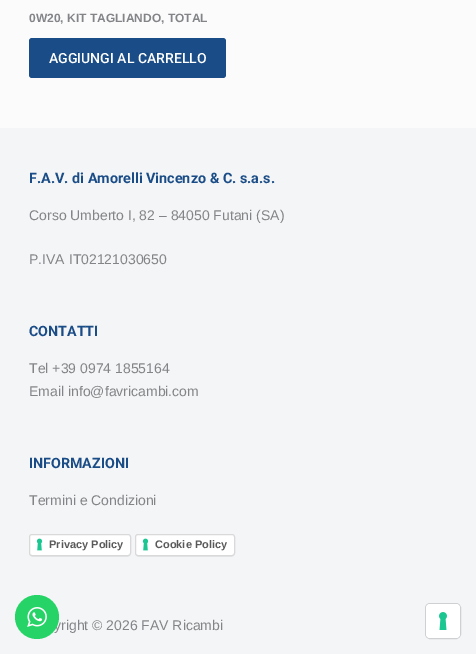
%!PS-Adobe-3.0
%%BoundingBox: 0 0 476 654
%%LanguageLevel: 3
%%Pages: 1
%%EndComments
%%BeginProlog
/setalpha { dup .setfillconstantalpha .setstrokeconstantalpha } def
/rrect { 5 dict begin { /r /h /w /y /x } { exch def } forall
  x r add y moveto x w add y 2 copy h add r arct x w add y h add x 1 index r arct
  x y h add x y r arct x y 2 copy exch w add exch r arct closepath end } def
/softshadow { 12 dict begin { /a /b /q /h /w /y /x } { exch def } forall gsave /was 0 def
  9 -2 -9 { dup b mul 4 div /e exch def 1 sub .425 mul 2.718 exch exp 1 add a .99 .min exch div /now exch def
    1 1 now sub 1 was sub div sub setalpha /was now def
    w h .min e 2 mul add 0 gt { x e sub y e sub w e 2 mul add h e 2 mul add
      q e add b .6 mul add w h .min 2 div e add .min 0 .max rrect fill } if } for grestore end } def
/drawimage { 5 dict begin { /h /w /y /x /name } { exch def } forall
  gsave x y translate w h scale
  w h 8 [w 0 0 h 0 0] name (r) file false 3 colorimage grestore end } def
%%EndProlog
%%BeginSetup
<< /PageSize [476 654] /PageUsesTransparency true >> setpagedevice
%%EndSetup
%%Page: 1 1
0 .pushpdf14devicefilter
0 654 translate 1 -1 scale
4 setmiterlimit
0.984 0.984 0.988 setrgbcolor
0 0 476 654 rectfill
0.102 0.302 0.529 setrgbcolor
29 38 197 40 3 rrect fill
0.957 0.961 0.965 setrgbcolor
0 128 476 526 rectfill
0 setgray
30 536 100 20 2 0.5 0.15 softshadow
1 setgray
29 534 102 22 3 rrect fill
(images/1.raw) 36 538 7 13 drawimage
0.15 setalpha
0 setgray
29.5 534.5 101 21 2.5 rrect stroke
1 setalpha
136 536 98 20 2 0.5 0.15 softshadow
1 setgray
135 534 100 22 3 rrect fill
(images/1.raw) 142 538 7 13 drawimage
0.15 setalpha
0 setgray
135.5 534.5 99 21 2.5 rrect stroke
1 setalpha
0.812 0.816 0.82 setrgbcolor
425.5 603.5 35 35 4.5 rrect stroke
1 setgray
426 604 34 34 4 rrect fill
(images/3.raw) 439 612 8 18 drawimage
/LiberationSans-Bold [12 0 0 -12 0 0] selectfont
0.51 0.518 0.529 setrgbcolor
29 22 moveto (0W20, KIT TAGLIANDO, TOTAL) show
/Roboto-Medium [14 0 0 -14 0 0] selectfont
1 setgray
49 63 moveto (AGGIUNGI AL CARRELLO) show
/Roboto-Bold [14.4 0 0 -14.4 0 0] selectfont
0.102 0.302 0.529 setrgbcolor
29 183 moveto (F.A.V. di Amorelli Vincenzo & C. s.a.s.) show
/LiberationSans-Regular [14 0 0 -14 0 0] selectfont
0.51 0.518 0.529 setrgbcolor
29 220 moveto (Corso Umberto I, 82 – 84050 Futani \(SA\)) show
29 264 moveto (P.IVA IT02121030650) show
/Roboto-Bold [14.25 0 0 -14.25 0 0] selectfont
0.102 0.302 0.529 setrgbcolor
29 336 moveto (CONTATTI) show
/LiberationSans-Regular [14 0 0 -14 0 0] selectfont
0.51 0.518 0.529 setrgbcolor
29 373 moveto (Tel +39 0974 1855164) show
29 396 moveto (Email info@favricambi.com) show
/Roboto-Bold [14.25 0 0 -14.25 0 0] selectfont
0.102 0.302 0.529 setrgbcolor
29 468 moveto (INFORMAZIONI) show
/LiberationSans-Regular [14 0 0 -14 0 0] selectfont
0.51 0.518 0.529 setrgbcolor
29 505 moveto (Termini e Condizioni) show
/LiberationSans-Bold [11 0 0 -11 0 0] selectfont
0.349 setgray
49 548 moveto (Privacy Policy) show
155 548 moveto (Cookie Policy) show
/LiberationSans-Regular [14 0 0 -14 0 0] selectfont
0.51 0.518 0.529 setrgbcolor
54 630 moveto (yright © 2026 FAV Ricambi) show
0.145 0.827 0.4 setrgbcolor
newpath 37 617 22 0 360 arc closepath fill
(images/2.raw) 27 607 20 20 drawimage
.poppdf14devicefilter showpage
%%EOF
